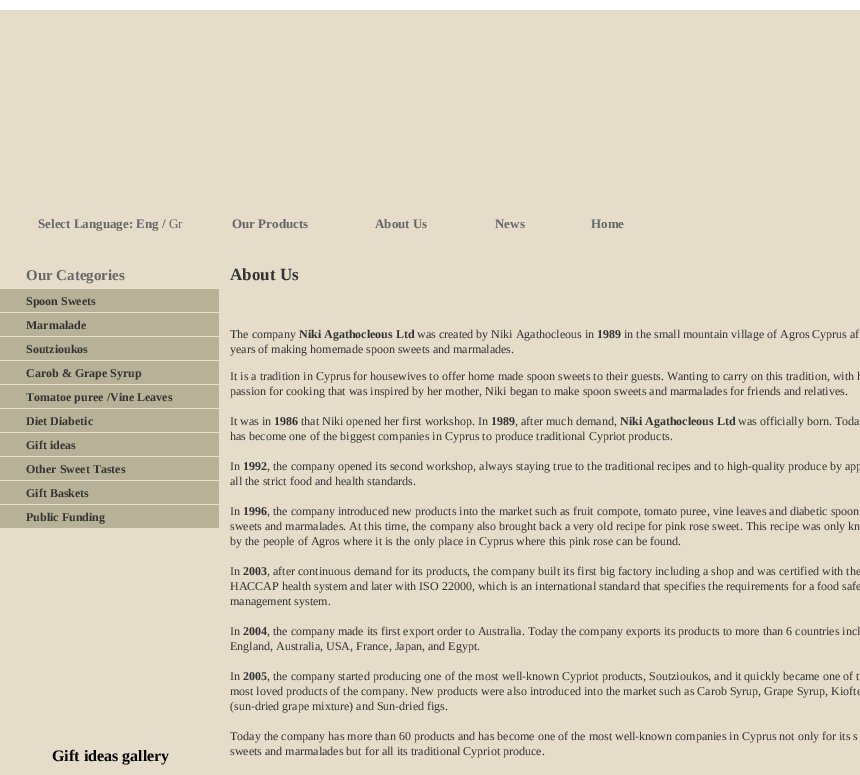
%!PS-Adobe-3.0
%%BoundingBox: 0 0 860 775
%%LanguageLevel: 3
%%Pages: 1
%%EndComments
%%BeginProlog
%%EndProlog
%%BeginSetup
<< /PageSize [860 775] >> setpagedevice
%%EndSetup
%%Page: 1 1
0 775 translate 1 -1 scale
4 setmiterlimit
1 setgray
0 0 860 775 rectfill
0.898 0.867 0.792 setrgbcolor
0 10 860 192 rectfill
0 202 860 43 rectfill
0 245 860 530 rectfill
0.718 0.698 0.592 setrgbcolor
0 289 219 23 rectfill
0 313 219 23 rectfill
0 337 219 23 rectfill
0 361 219 23 rectfill
0 385 219 23 rectfill
0 409 219 23 rectfill
0 433 219 23 rectfill
0 457 219 23 rectfill
0 481 219 23 rectfill
0 505 219 23 rectfill
/LiberationSerif-Bold [13 0 0 -13 0 0] selectfont
0.4 setgray
38 228 moveto (Select Language: Eng /) show
/LiberationSerif-Regular [13 0 0 -13 0 0] selectfont
169 228 moveto (Gr) show
/LiberationSerif-Bold [13 0 0 -13 0 0] selectfont
232 228 moveto (Our Products) show
375 228 moveto (About Us) show
495 228 moveto (News) show
591 228 moveto (Home) show
/LiberationSerif-Bold [15 0 0 -15 0 0] selectfont
26 280 moveto (Our Categories) show
/LiberationSerif-Bold [12 0 0 -12 0 0] selectfont
0.2 setgray
26 305 moveto (Spoon Sweets) show
26 329 moveto (Marmalade) show
26 353 moveto (Soutzioukos) show
26 377 moveto (Carob & Grape Syrup) show
26 401 moveto (Tomatoe puree /Vine Leaves) show
26 425 moveto (Diet Diabetic) show
26 449 moveto (Gift ideas) show
26 473 moveto (Other Sweet Tastes) show
26 497 moveto (Gift Baskets) show
26 521 moveto (Public Funding) show
/LiberationSerif-Bold [16 0 0 -16 0 0] selectfont
0 setgray
52 761 moveto (Gift ideas gallery) show
/LiberationSerif-Bold [17 0 0 -17 0 0] selectfont
0.2 setgray
230 280 moveto (About Us) show
/LiberationSerif-Regular [12 0 0 -12 0 0] selectfont
230 338 moveto (The company) show
/LiberationSerif-Bold [12 0 0 -12 0 0] selectfont
299 338 moveto (Niki Agathocleous Ltd) show
/LiberationSerif-Regular [12 0 0 -12 0 0] selectfont
417 338 moveto (was created by Niki Agathocleous in) show
/LiberationSerif-Bold [12 0 0 -12 0 0] selectfont
597 338 moveto (1989) show
/LiberationSerif-Regular [12 0 0 -12 0 0] selectfont
624 338 moveto (in the small mountain village of Agros Cyprus af) show
230 353 moveto (years of making homemade spoon sweets and marmalades.) show
230 380 moveto (It is a tradition in Cyprus for housewives to offer home made spoon sweets to their guests. Wanting to carry on this tradition, with h) show
230 395 moveto (passion for cooking that was inspired by her mother, Niki began to make spoon sweets and marmalades for friends and relatives.) show
230 425 moveto (It was in) show
/LiberationSerif-Bold [12 0 0 -12 0 0] selectfont
274 425 moveto (1986) show
/LiberationSerif-Regular [12 0 0 -12 0 0] selectfont
301 425 moveto (that Niki opened her first workshop. In) show
/LiberationSerif-Bold [12 0 0 -12 0 0] selectfont
491 425 moveto (1989) show
/LiberationSerif-Regular [12 0 0 -12 0 0] selectfont
515 425 moveto (, after much demand,) show
/LiberationSerif-Bold [12 0 0 -12 0 0] selectfont
620 425 moveto (Niki Agathocleous Ltd) show
/LiberationSerif-Regular [12 0 0 -12 0 0] selectfont
738 425 moveto (was officially born. Toda) show
230 440 moveto (has become one of the biggest companies in Cyprus to produce traditional Cypriot products.) show
230 470 moveto (In) show
/LiberationSerif-Bold [12 0 0 -12 0 0] selectfont
243 470 moveto (1992) show
/LiberationSerif-Regular [12 0 0 -12 0 0] selectfont
267 470 moveto (, the company opened its second workshop, always staying true to the traditional recipes and to high-quality produce by app) show
230 485 moveto (all the strict food and health standards.) show
230 515 moveto (In) show
/LiberationSerif-Bold [12 0 0 -12 0 0] selectfont
243 515 moveto (1996) show
/LiberationSerif-Regular [12 0 0 -12 0 0] selectfont
267 515 moveto (, the company introduced new products into the market such as fruit compote, tomato puree, vine leaves and diabetic spoon) show
230 530 moveto (sweets and marmalades. At this time, the company also brought back a very old recipe for pink rose sweet. This recipe was only kn) show
230 545 moveto (by the people of Agros where it is the only place in Cyprus where this pink rose can be found.) show
230 575 moveto (In) show
/LiberationSerif-Bold [12 0 0 -12 0 0] selectfont
243 575 moveto (2003) show
/LiberationSerif-Regular [12 0 0 -12 0 0] selectfont
267 575 moveto (, after continuous demand for its products, the company built its first big factory including a shop and was certified with the) show
230 590 moveto (HACCAP health system and later with ISO 22000, which is an international standard that specifies the requirements for a food safe) show
230 605 moveto (management system.) show
230 635 moveto (In) show
/LiberationSerif-Bold [12 0 0 -12 0 0] selectfont
243 635 moveto (2004) show
/LiberationSerif-Regular [12 0 0 -12 0 0] selectfont
267 635 moveto (, the company made its first export order to Australia. Today the company exports its products to more than 6 countries incl) show
230 650 moveto (England, Australia, USA, France, Japan, and Egypt.) show
230 680 moveto (In) show
/LiberationSerif-Bold [12 0 0 -12 0 0] selectfont
243 680 moveto (2005) show
/LiberationSerif-Regular [12 0 0 -12 0 0] selectfont
267 680 moveto (, the company started producing one of the most well-known Cypriot products, Soutzioukos, and it quickly became one of t) show
230 695 moveto (most loved products of the company. New products were also introduced into the market such as Carob Syrup, Grape Syrup, Kiofte) show
230 710 moveto (\(sun-dried grape mixture\) and Sun-dried figs.) show
230 740 moveto (Today the company has more than 60 products and has become one of the most well-known companies in Cyprus not only for its s) show
230 755 moveto (sweets and marmalades but for all its traditional Cypriot produce.) show
showpage
%%EOF
